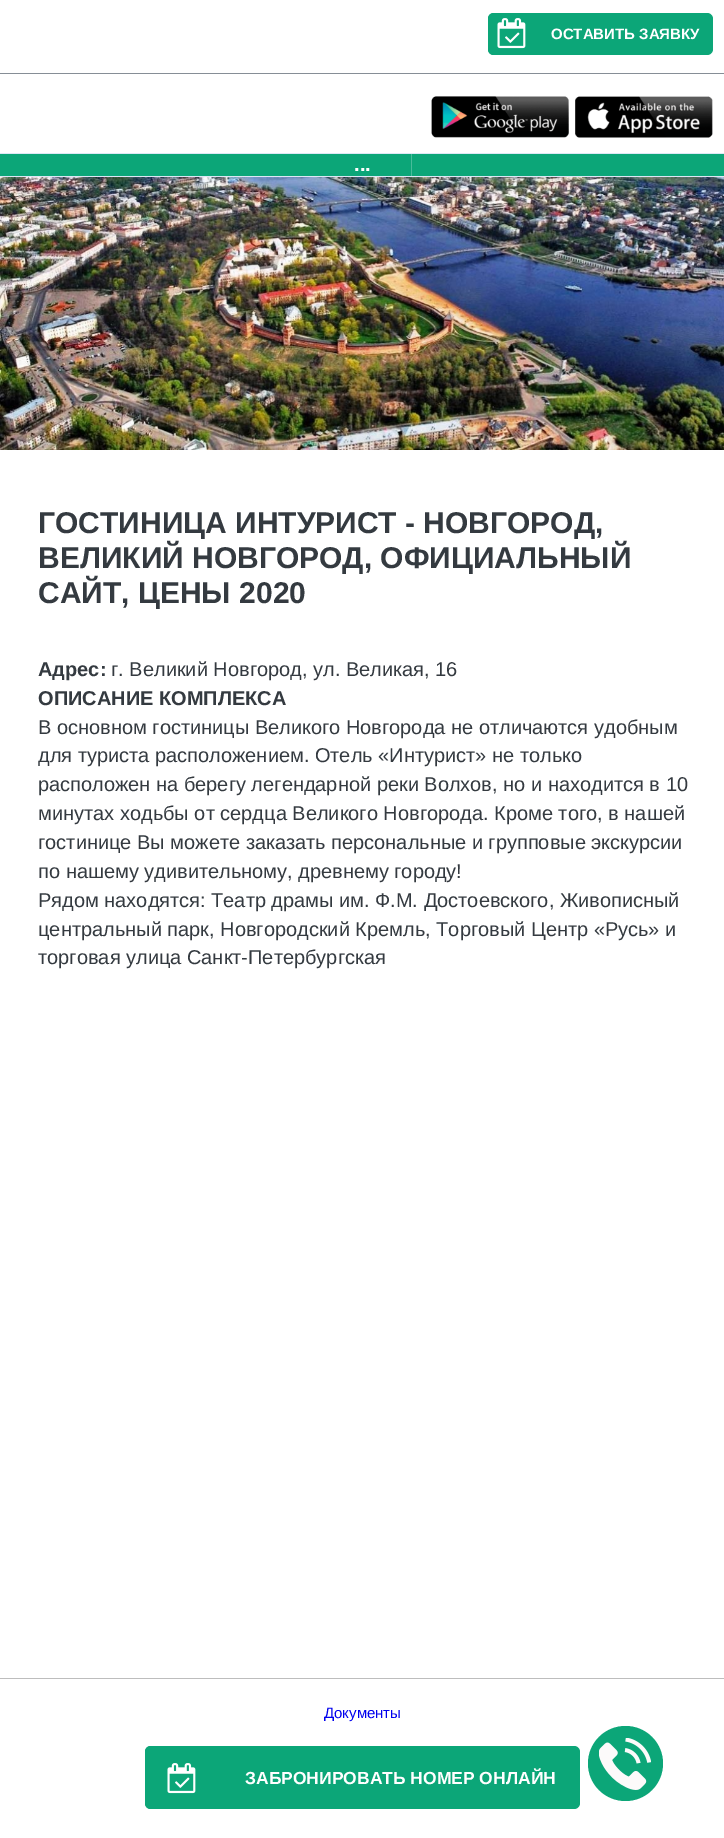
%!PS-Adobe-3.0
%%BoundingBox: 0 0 724 1838
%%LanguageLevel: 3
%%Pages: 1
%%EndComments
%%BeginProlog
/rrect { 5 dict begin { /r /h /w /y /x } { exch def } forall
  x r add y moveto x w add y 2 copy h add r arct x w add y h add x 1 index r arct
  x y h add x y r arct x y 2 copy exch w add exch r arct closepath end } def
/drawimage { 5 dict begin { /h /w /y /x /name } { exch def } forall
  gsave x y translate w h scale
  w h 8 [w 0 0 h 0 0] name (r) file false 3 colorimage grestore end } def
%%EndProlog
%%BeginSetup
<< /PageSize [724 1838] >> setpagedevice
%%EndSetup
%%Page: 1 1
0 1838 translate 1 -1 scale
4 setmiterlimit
1 setgray
0 0 724 1838 rectfill
0.525 0.557 0.588 setrgbcolor
0 73 724 1 rectfill
0.047 0.651 0.471 setrgbcolor
488 13 225 42 6 rrect fill
newpath 494 13 moveto 538 13 lineto 538 55 lineto 494 55 lineto 490.5 55 488 52.5 488 49 curveto 488 19 lineto 488 15.5 490.5 13 494 13 curveto closepath fill
(images/1.raw) 497 18 29 31 drawimage
(images/2.raw) 431 96 138 42 drawimage
(images/3.raw) 575 96 138 42 drawimage
0.867 0.91 0.965 setrgbcolor
0 153 724 1 rectfill
0 176 724 1 rectfill
0.047 0.651 0.471 setrgbcolor
0 154 724 22 rectfill
0.286 0.737 0.604 setrgbcolor
411 154 1 22 rectfill
(images/4.raw) 0 177 724 273 drawimage
0.741 setgray
0 1678 724 1 rectfill
0.047 0.651 0.471 setrgbcolor
145 1746 435 63 6 rrect fill
newpath 151 1746 moveto 220 1746 lineto 220 1809 lineto 151 1809 lineto 147.5 1809 145 1806.5 145 1803 curveto 145 1752 lineto 145 1748.5 147.5 1746 151 1746 curveto closepath fill
(images/1.raw) 167 1763 29 31 drawimage
newpath 625.5 1763.5 37.5 0 360 arc closepath fill
(images/5.raw) 599 1738 52 52 drawimage
/LiberationSans-Bold [15 0 0 -15 0 0] selectfont
1 setgray
551 39 moveto (ОСТАВИТЬ ЗАЯВКУ) show
/LiberationSans-Bold [20 0 0 -20 0 0] selectfont
354 171 moveto (...) show
/LiberationSans-Bold [30 0 0 -30 0 0] selectfont
0.204 0.227 0.251 setrgbcolor
38 533 moveto (ГОСТИНИЦА ИНТУРИСТ - НОВГОРОД,) show
38 568 moveto (ВЕЛИКИЙ НОВГОРОД, ОФИЦИАЛЬНЫЙ) show
38 603 moveto (САЙТ, ЦЕНЫ 2020) show
/LiberationSans-Bold [20 0 0 -20 0 0] selectfont
38 676 moveto (Адрес:) show
/LiberationSans-Regular [20 0 0 -20 0 0] selectfont
111 676 moveto (г. Великий Новгород, ул. Великая, 16) show
/LiberationSans-Bold [20 0 0 -20 0 0] selectfont
38 705 moveto (ОПИСАНИЕ КОМПЛЕКСА) show
/LiberationSans-Regular [20 0 0 -20 0 0] selectfont
38 734 moveto (В основном гостиницы Великого Новгорода не отличаются удобным) show
38 762 moveto (для туриста расположением. Отель «Интурист» не только) show
38 791 moveto (расположен на берегу легендарной реки Волхов, но и находится в 10) show
38 820 moveto (минутах ходьбы от сердца Великого Новгорода. Кроме того, в нашей) show
38 849 moveto (гостинице Вы можете заказать персональные и групповые экскурсии) show
38 878 moveto (по нашему удивительному, древнему городу!) show
38 907 moveto (Рядом находятся: Театр драмы им. Ф.М. Достоевского, Живописный) show
38 936 moveto (центральный парк, Новгородский Кремль, Торговый Центр «Русь» и) show
38 964 moveto (торговая улица Санкт-Петербургская) show
/LiberationSans-Regular [15 0 0 -15 0 0] selectfont
0 0 0.933 setrgbcolor
324 1718 moveto (Документы) show
/LiberationSans-Bold [17.5 0 0 -17.5 0 0] selectfont
1 setgray
245 1784 moveto (ЗАБРОНИРОВАТЬ НОМЕР ОНЛАЙН) show
showpage
%%EOF
